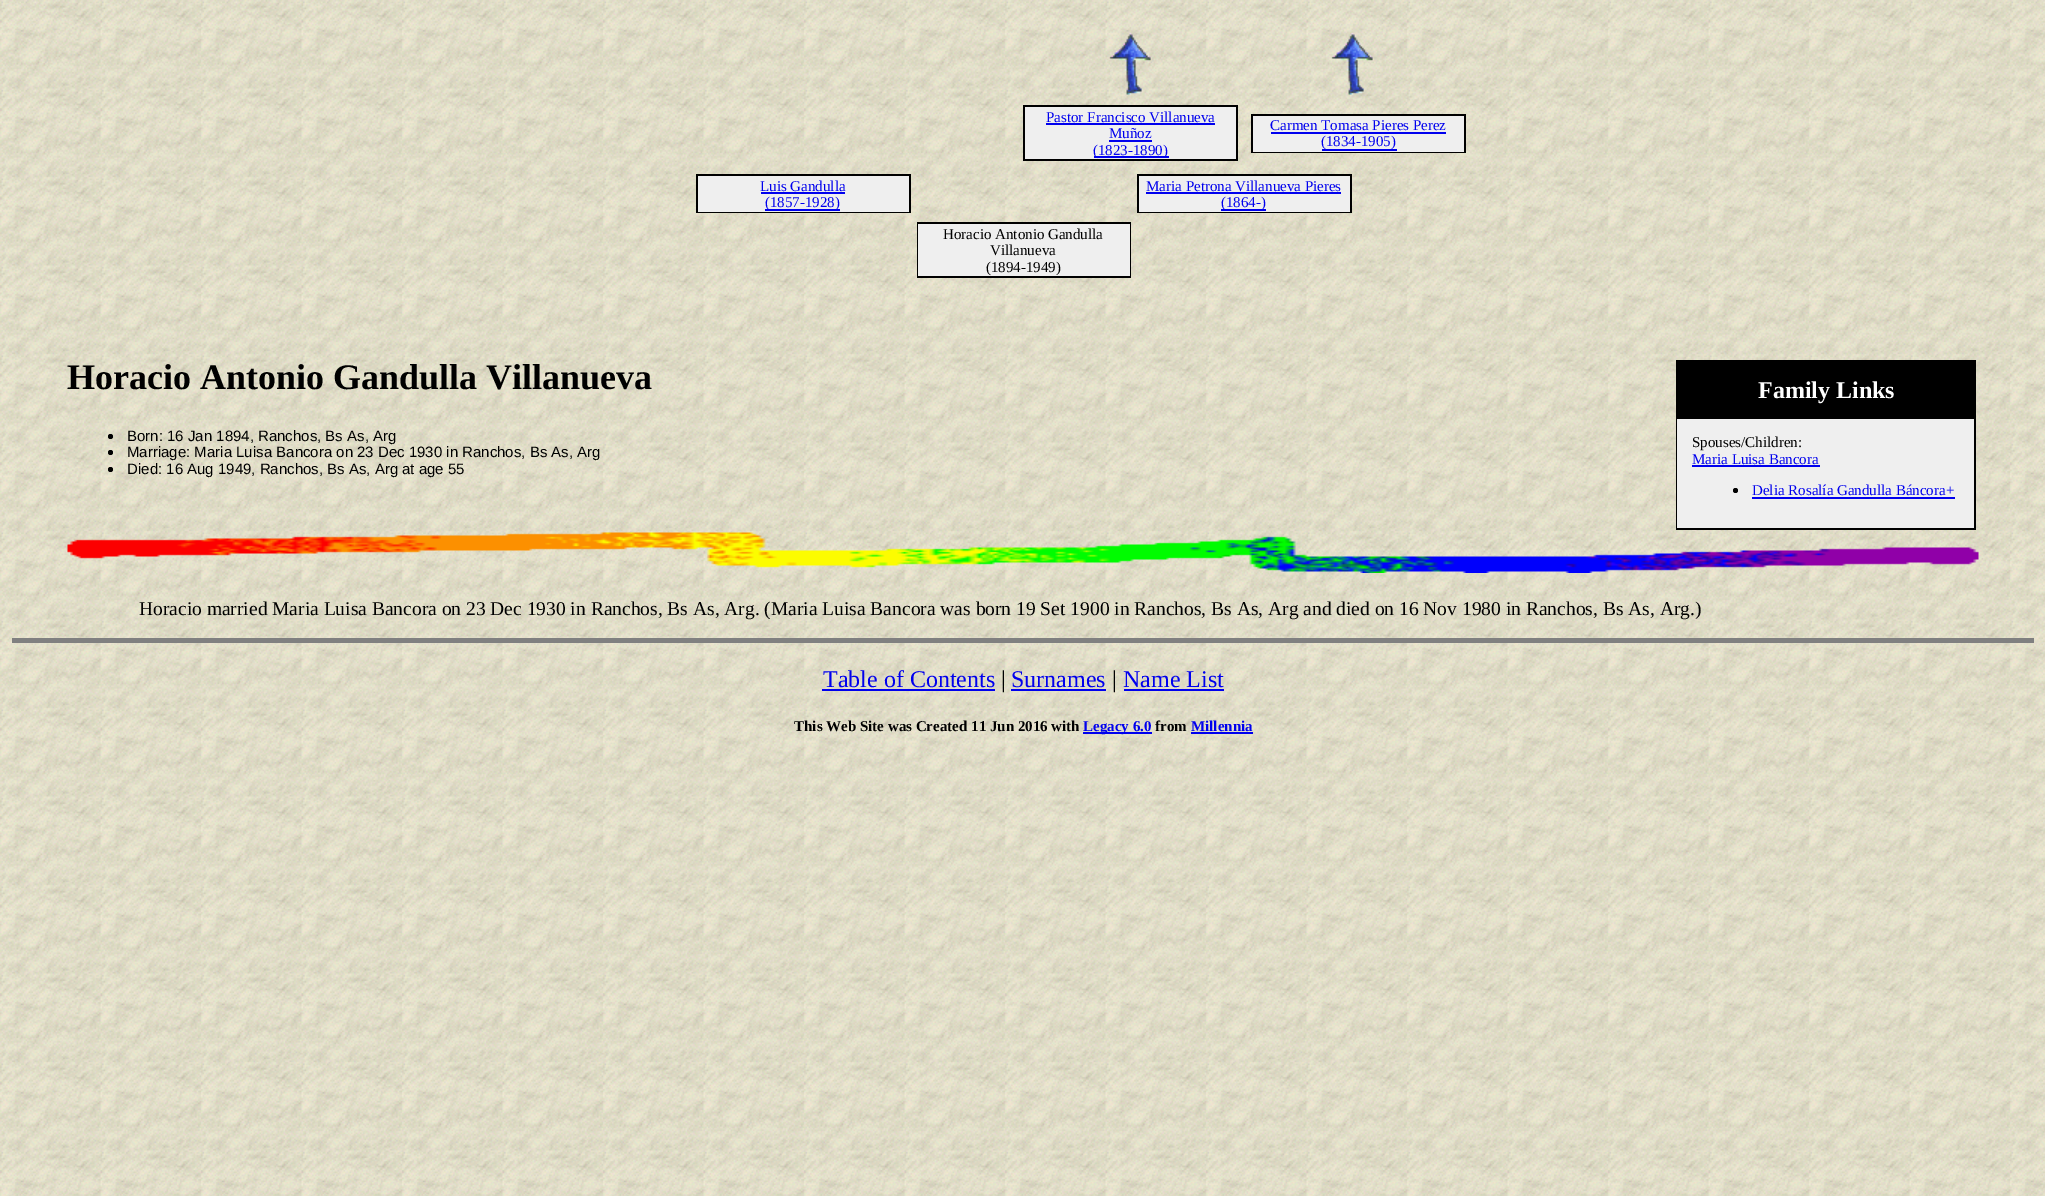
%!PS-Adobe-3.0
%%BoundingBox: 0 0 2045 1196
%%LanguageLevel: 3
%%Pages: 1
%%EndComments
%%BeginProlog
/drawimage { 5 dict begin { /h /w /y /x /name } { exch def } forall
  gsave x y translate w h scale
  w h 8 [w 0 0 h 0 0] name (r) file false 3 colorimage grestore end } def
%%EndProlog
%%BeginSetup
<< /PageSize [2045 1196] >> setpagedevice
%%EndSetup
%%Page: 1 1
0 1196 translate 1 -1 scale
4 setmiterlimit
1 setgray
0 0 2045 1196 rectfill
(images/1.raw) 0 0 2045 1196 drawimage
(images/2.raw) 1109 32 42 63 drawimage
(images/3.raw) 1331 32 42 63 drawimage
0 setgray
1023 105 215 56 rectfill
0.937 setgray
1025 107 211 52 rectfill
0 0 0.933 setrgbcolor
1046 123 169 2 rectfill
1109 140 43 2 rectfill
1094 156 75 2 rectfill
0 setgray
1251 114 215 39 rectfill
0.937 setgray
1253 116 211 36 rectfill
0 0 0.933 setrgbcolor
1271 132 175 2 rectfill
1322 149 75 2 rectfill
0 setgray
696 174 215 39 rectfill
0.937 setgray
698 176 211 36 rectfill
0 0 0.933 setrgbcolor
761 192 84 2 rectfill
765 209 75 2 rectfill
0 setgray
1137 174 215 39 rectfill
0.937 setgray
1139 176 211 36 rectfill
0 0 0.933 setrgbcolor
1146 192 195 2 rectfill
1221 209 45 2 rectfill
0 setgray
917 222 214 56 rectfill
0.937 setgray
918 224 212 52 rectfill
0 setgray
newpath 110.5 436.5 2.5 0 360 arc closepath fill
newpath 110.5 452.5 2.5 0 360 arc closepath fill
newpath 110.5 469.5 2.5 0 360 arc closepath fill
1676 360 300 170 rectfill
0.937 setgray
1677 419 297 109 rectfill
0 0 0.933 setrgbcolor
1692 465 128 2 rectfill
0 setgray
newpath 1735.5 490.5 2.5 0 360 arc closepath fill
0 0 0.933 setrgbcolor
1752 497 203 2 rectfill
(images/4.raw) 67 532 1912 41 drawimage
0.502 setgray
12 638 2022 5 rectfill
0 0 0.933 setrgbcolor
822 689 173 2 rectfill
1011 689 95 2 rectfill
1124 689 100 2 rectfill
1083 732 69 2 rectfill
1191 732 62 2 rectfill
/LiberationSerif-Regular [15 0 0 -15 0 0] selectfont
1046 122 moveto (Pastor Francisco Villanueva) show
1109 138 moveto (Muñoz) show
1093 155 moveto (\(1823-1890\)) show
1270 130 moveto (Carmen Tomasa Pieres Perez) show
1321 146 moveto (\(1834-1905\)) show
760 191 moveto (Luis Gandulla) show
765 207 moveto (\(1857-1928\)) show
1146 191 moveto (Maria Petrona Villanueva Pieres) show
1221 207 moveto (\(1864-\)) show
0 setgray
943 239 moveto (Horacio Antonio Gandulla) show
990 255 moveto (Villanueva) show
986 272 moveto (\(1894-1949\)) show
/LiberationSerif-Bold [36 0 0 -36 0 0] selectfont
67 389 moveto (Horacio Antonio Gandulla Villanueva) show
/LiberationSans-Regular [15 0 0 -15 0 0] selectfont
127 441 moveto (Born: 16 Jan 1894, Ranchos, Bs As, Arg) show
127 457 moveto (Marriage: Maria Luisa Bancora on 23 Dec 1930 in Ranchos, Bs As, Arg) show
127 474 moveto (Died: 16 Aug 1949, Ranchos, Bs As, Arg at age 55) show
/LiberationSerif-Bold [24 0 0 -24 0 0] selectfont
1 setgray
1758 398 moveto (Family Links) show
/LiberationSerif-Regular [15 0 0 -15 0 0] selectfont
0 setgray
1692 447 moveto (Spouses/Children:) show
0 0 0.933 setrgbcolor
1692 464 moveto (Maria Luisa Bancora) show
1752 495 moveto (Delia Rosalía Gandulla Báncora+) show
/LiberationSerif-Regular [19.5 0 0 -19.5 0 0] selectfont
0 setgray
139 615 moveto (Horacio married Maria Luisa Bancora on 23 Dec 1930 in Ranchos, Bs As, Arg. \(Maria Luisa Bancora was born 19 Set 1900 in Ranchos, Bs As, Arg and died on 16 Nov 1980 in Ranchos, Bs As, Arg.\)) show
/LiberationSerif-Regular [24 0 0 -24 0 0] selectfont
0 0 0.933 setrgbcolor
823 687 moveto (Table of Contents) show
0 setgray
1001 687 moveto (|) show
0 0 0.933 setrgbcolor
1011 687 moveto (Surnames) show
0 setgray
1112 687 moveto (|) show
0 0 0.933 setrgbcolor
1123 687 moveto (Name List) show
/LiberationSerif-Bold [15 0 0 -15 0 0] selectfont
0 setgray
794 731 moveto (This Web Site was Created 11 Jun 2016 with) show
0 0 0.933 setrgbcolor
1083 731 moveto (Legacy 6.0) show
0 setgray
1155 731 moveto (from) show
0 0 0.933 setrgbcolor
1191 731 moveto (Millennia) show
showpage
%%EOF
